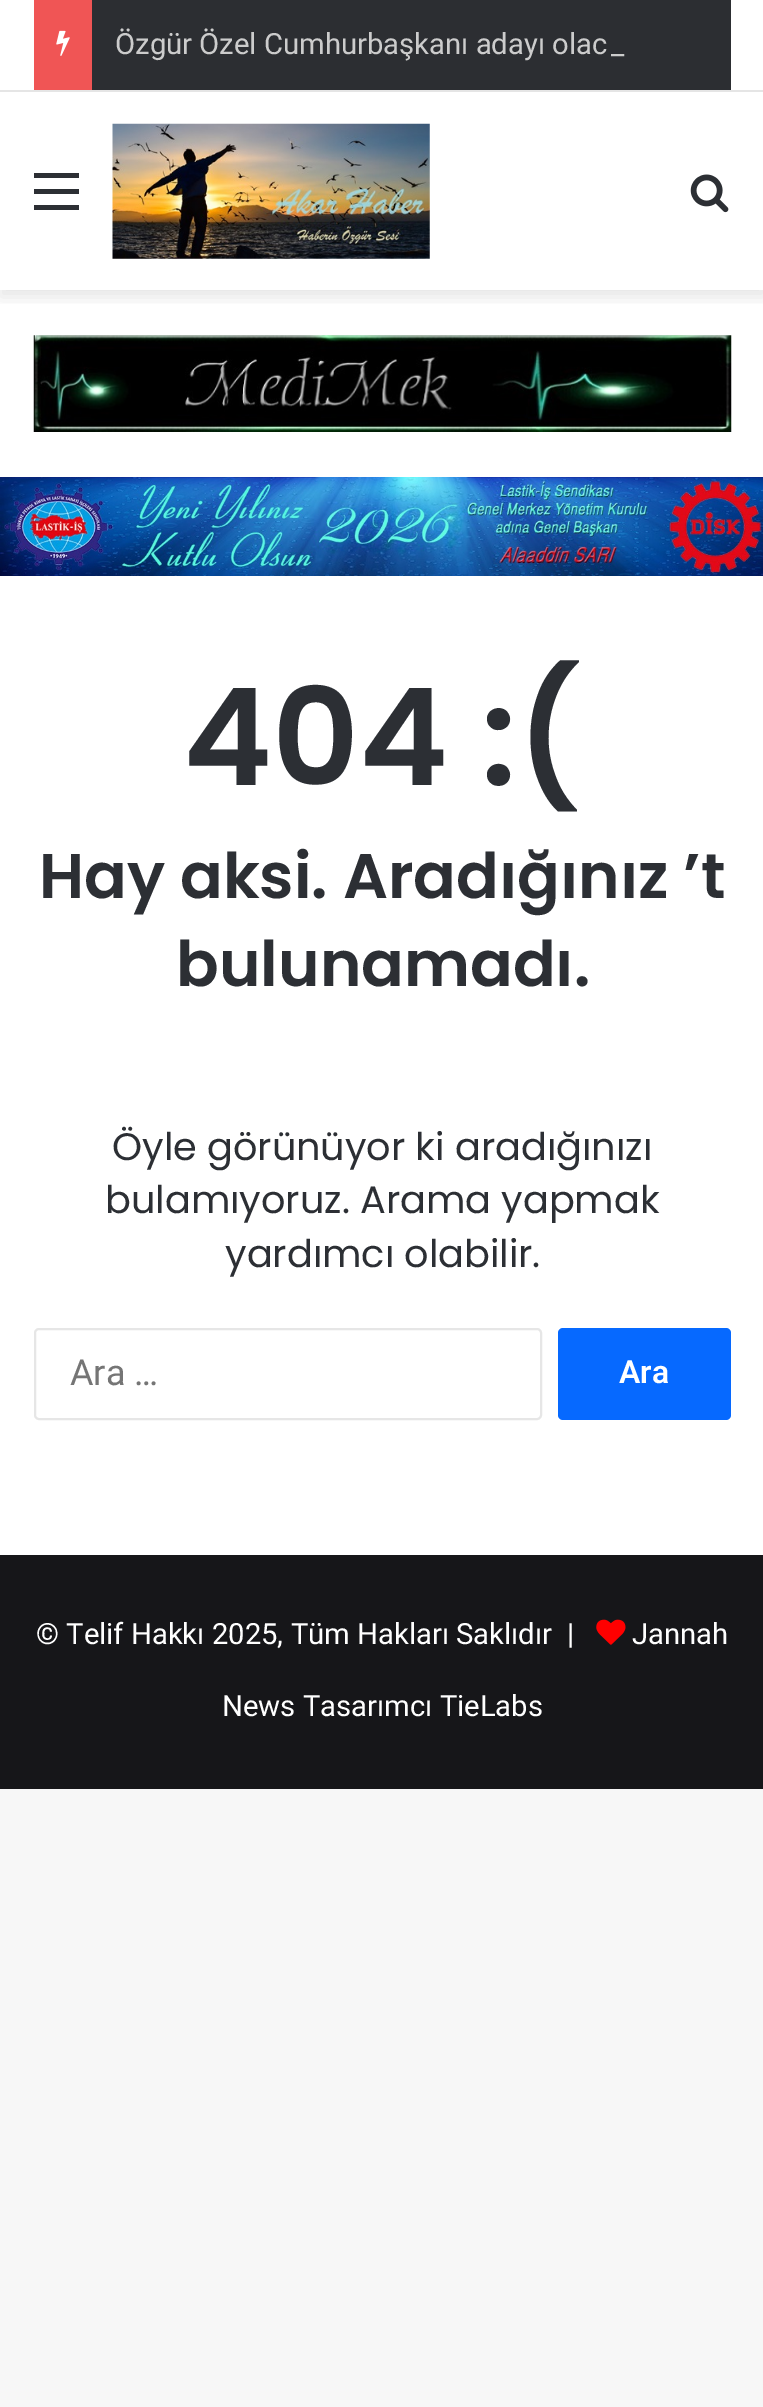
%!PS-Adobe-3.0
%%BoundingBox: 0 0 763 2407
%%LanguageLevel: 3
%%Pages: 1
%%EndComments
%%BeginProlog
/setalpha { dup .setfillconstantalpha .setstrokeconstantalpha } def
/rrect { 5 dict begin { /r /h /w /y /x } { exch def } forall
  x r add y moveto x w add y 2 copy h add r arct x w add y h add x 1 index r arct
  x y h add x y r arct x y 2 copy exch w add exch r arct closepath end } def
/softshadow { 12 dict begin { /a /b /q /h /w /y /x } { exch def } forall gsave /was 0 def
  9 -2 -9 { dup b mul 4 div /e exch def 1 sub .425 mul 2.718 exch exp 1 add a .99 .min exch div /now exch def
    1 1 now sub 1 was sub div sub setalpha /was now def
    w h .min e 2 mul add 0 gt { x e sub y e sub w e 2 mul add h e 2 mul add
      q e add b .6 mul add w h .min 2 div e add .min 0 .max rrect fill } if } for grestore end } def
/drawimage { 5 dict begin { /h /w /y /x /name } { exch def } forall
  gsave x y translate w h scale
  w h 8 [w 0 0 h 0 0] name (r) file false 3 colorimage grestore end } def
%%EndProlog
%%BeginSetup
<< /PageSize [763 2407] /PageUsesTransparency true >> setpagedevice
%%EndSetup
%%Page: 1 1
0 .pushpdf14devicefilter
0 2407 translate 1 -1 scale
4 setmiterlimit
0.969 setgray
0 0 763 2407 rectfill
1 setgray
0 0 763 1555 rectfill
gsave
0 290 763 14 rectclip
0 setgray
0 99 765 198 0 8 0.1 softshadow
grestore
0.1 setalpha
0 setgray
0 90 763 2 rectfill
1 setalpha
0.173 0.18 0.196 setrgbcolor
92 0 639 90 rectfill
0.941 0.333 0.333 setrgbcolor
34 0 58 90 rectfill
(images/1.raw) 56 30 14 26 drawimage
0.173 0.184 0.204 setrgbcolor
34 189 45 5 rectfill
34 173 45 5 rectfill
34 205 45 5 rectfill
(images/2.raw) 112 123 318 136 drawimage
(images/3.raw) 690 174 39 39 drawimage
(images/4.raw) 33 335 699 97 drawimage
(images/5.raw) 0 477 763 99 drawimage
0.902 setgray
2 setlinewidth
35 1329 506 90 4 rrect stroke
0.024 0.412 1 setrgbcolor
558 1328 173 92 5 rrect fill
0.086 0.086 0.098 setrgbcolor
0 1555 763 234 rectfill
(images/6.raw) 596 1619 30 26 drawimage
/Roboto-Regular [29.25 0 0 -29.25 0 0] selectfont
0.8 setgray
115 54 moveto (Özgür Özel Cumhurbaşkanı adayı olac) show
611 54 moveto (_) show
/Poppins-SemiBold [135 0 0 -135 0 0] selectfont
0.173 0.184 0.204 setrgbcolor
183 785 moveto (404 :\() show
/Poppins-SemiBold [63 0 0 -63 0 0] selectfont
39 898 moveto (Hay aksi. Aradığınız ’t) show
176 986 moveto (bulunamadı.) show
/Poppins-Regular [38.25 0 0 -38.25 0 0] selectfont
112 1160 moveto (Öyle görünüyor ki aradığınızı) show
105 1213 moveto (bulamıyoruz. Arama yapmak) show
225 1267 moveto (yardımcı olabilir.) show
/Roboto-Regular [36 0 0 -36 0 0] selectfont
0.459 setgray
70 1385 moveto (Ara …) show
/Roboto-SemiBold [32 0 0 -32 0 0] selectfont
1 setgray
619 1383 moveto (Ara) show
/Roboto-Regular [29.25 0 0 -29.25 0 0] selectfont
36 1644 moveto (© Telif Hakkı 2025, Tüm Hakları Saklıdır  |) show
632 1644 moveto (Jannah) show
222 1716 moveto (News Tasarımcı TieLabs) show
.poppdf14devicefilter showpage
%%EOF
